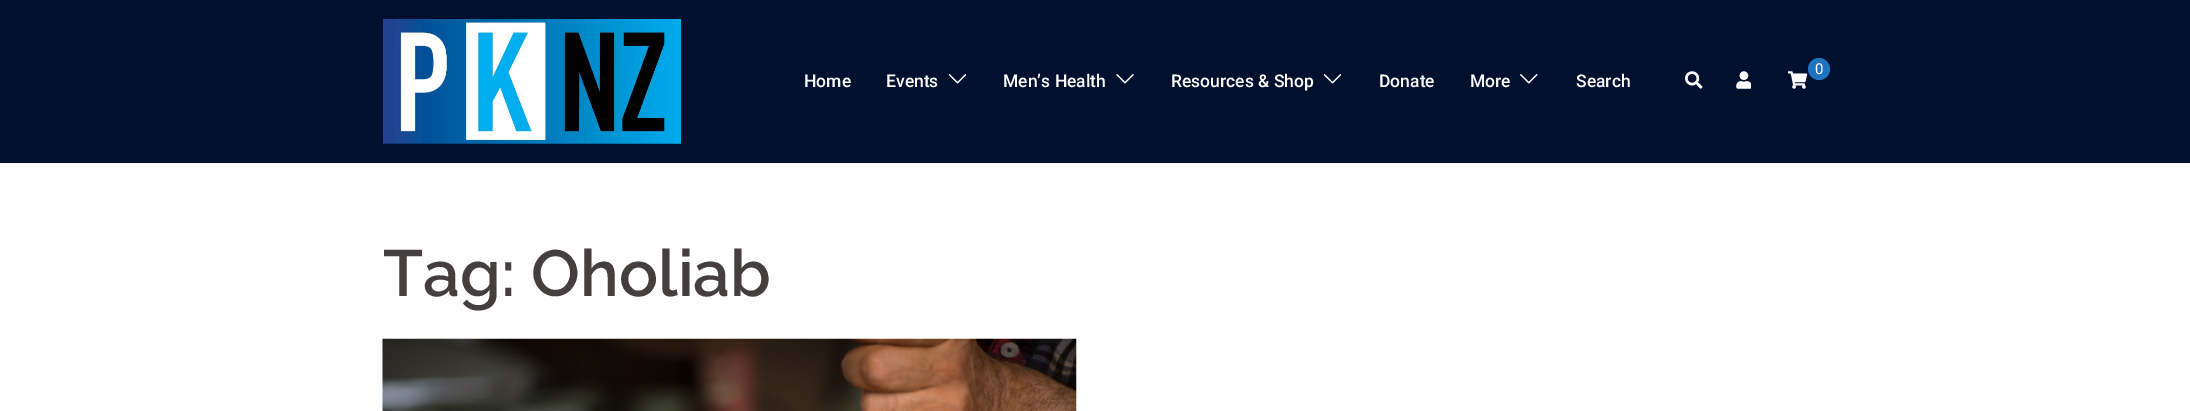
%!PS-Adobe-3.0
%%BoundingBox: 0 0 2190 411
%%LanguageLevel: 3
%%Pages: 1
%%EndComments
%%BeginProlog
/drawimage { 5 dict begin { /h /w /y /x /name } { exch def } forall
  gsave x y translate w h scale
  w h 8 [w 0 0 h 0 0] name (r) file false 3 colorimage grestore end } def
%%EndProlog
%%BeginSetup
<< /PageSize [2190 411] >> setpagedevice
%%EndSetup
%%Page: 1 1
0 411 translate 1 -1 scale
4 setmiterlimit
1 setgray
0 0 2190 411 rectfill
0 0.063 0.18 setrgbcolor
0 0 2190 163 rectfill
(images/1.raw) 383 19 298 125 drawimage
0.118 0.451 0.745 setrgbcolor
newpath 1819 69 11 0 360 arc closepath fill
(images/2.raw) 1788 71 20 18 drawimage
(images/3.raw) 1736 71 15 18 drawimage
(images/4.raw) 1685 71 18 18 drawimage
(images/5.raw) 949 74 17 10 drawimage
(images/6.raw) 1116 74 18 10 drawimage
(images/5.raw) 1324 74 17 10 drawimage
(images/7.raw) 1520 74 18 10 drawimage
(images/8.raw) 382 338 695 73 drawimage
/Roboto-Regular [15 0 0 -15 0 0] selectfont
1 setgray
1815 74 moveto (0) show
/Roboto-Medium [17.5 0 0 -17.5 0 0] selectfont
804 87 moveto (Home) show
886 87 moveto (Events) show
1003 87 moveto (Men’s Health) show
1171 87 moveto (Resources & Shop) show
1379 87 moveto (Donate) show
1470 87 moveto (More) show
1576 87 moveto (Search) show
/Raleway-SemiBold [65 0 0 -65 0 0] selectfont
0.267 0.247 0.247 setrgbcolor
383 296 moveto (Tag: Oholiab) show
showpage
%%EOF
